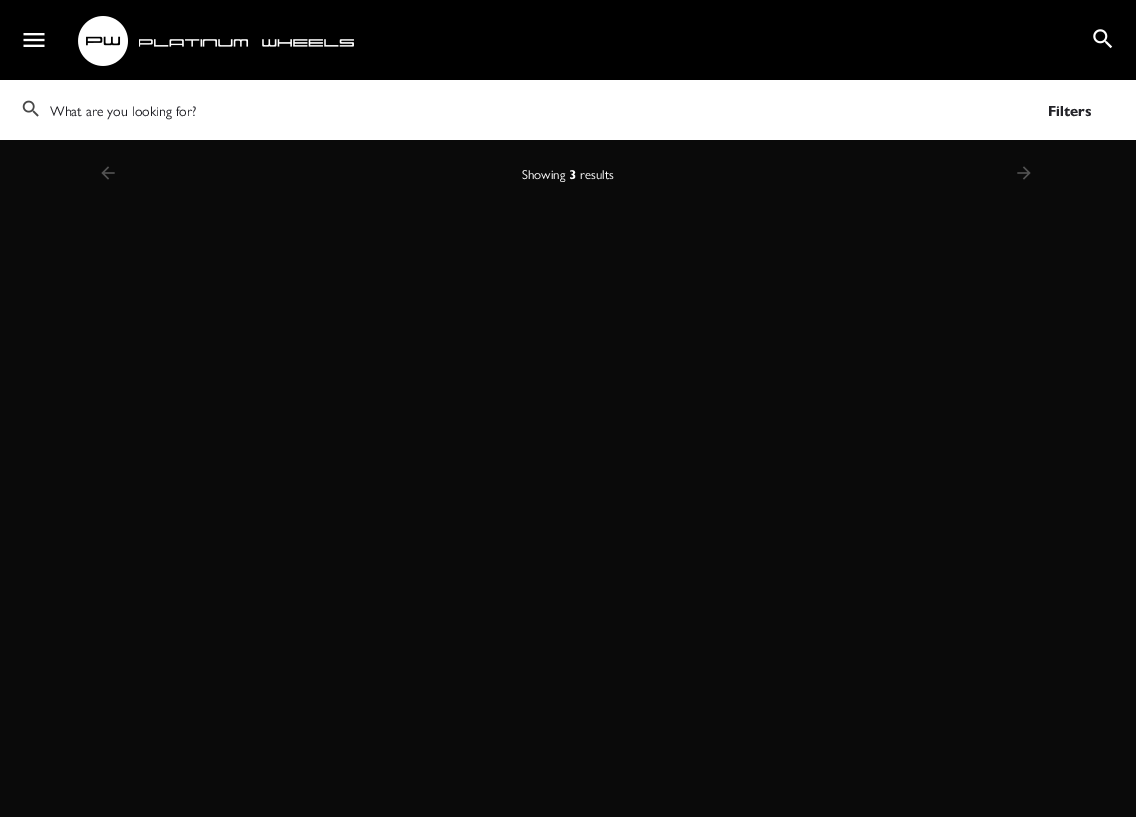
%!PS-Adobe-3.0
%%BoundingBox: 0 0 1136 817
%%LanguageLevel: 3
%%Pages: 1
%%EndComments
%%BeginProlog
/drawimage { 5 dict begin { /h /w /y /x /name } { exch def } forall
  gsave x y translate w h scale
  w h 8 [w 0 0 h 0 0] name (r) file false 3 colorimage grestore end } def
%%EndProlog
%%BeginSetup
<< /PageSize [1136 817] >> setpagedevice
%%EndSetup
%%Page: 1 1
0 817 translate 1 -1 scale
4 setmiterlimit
0.039 setgray
0 0 1136 817 rectfill
0 setgray
0 0 1136 80 rectfill
(images/1.raw) 23 33 22 14 drawimage
(images/2.raw) 78 16 276 50 drawimage
(images/3.raw) 1093 29 20 20 drawimage
1 setgray
0 80 1136 60 rectfill
(images/4.raw) 22 100 17 17 drawimage
(images/5.raw) 101 166 14 14 drawimage
(images/6.raw) 1017 166 14 14 drawimage
/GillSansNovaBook-Regular [14 0 0 -14 0 0] selectfont
0.114 0.114 0.137 setrgbcolor
50 116 moveto (What are you looking for?) show
/GillSansNovaBook-Bold [14.5 0 0 -14.5 0 0] selectfont
0.141 0.141 0.161 setrgbcolor
1048 116 moveto (Filters) show
/GillSansNovaBook-Regular [13 0 0 -13 0 0] selectfont
1 setgray
522 179 moveto (Showing) show
/GillSansNovaBook-Bold [13 0 0 -13 0 0] selectfont
569 179 moveto (3) show
/GillSansNovaBook-Regular [13 0 0 -13 0 0] selectfont
580 179 moveto (results) show
showpage
%%EOF
